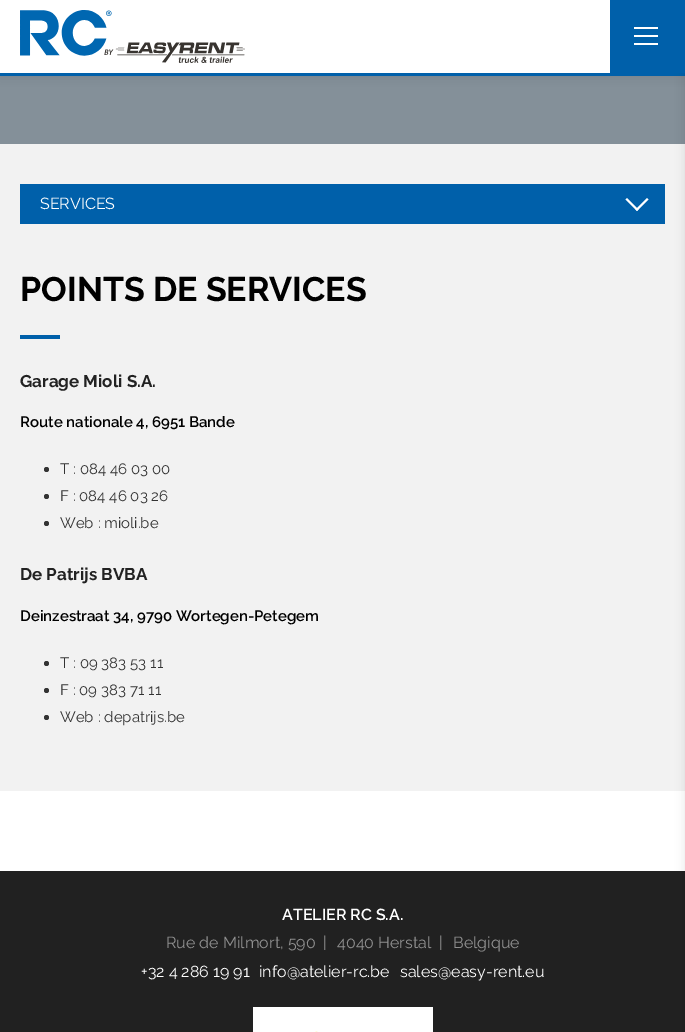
%!PS-Adobe-3.0
%%BoundingBox: 0 0 685 1032
%%LanguageLevel: 3
%%Pages: 1
%%EndComments
%%BeginProlog
/setalpha { dup .setfillconstantalpha .setstrokeconstantalpha } def
/rrect { 5 dict begin { /r /h /w /y /x } { exch def } forall
  x r add y moveto x w add y 2 copy h add r arct x w add y h add x 1 index r arct
  x y h add x y r arct x y 2 copy exch w add exch r arct closepath end } def
/softshadow { 12 dict begin { /a /b /q /h /w /y /x } { exch def } forall gsave /was 0 def
  9 -2 -9 { dup b mul 4 div /e exch def 1 sub .425 mul 2.718 exch exp 1 add a .99 .min exch div /now exch def
    1 1 now sub 1 was sub div sub setalpha /was now def
    w h .min e 2 mul add 0 gt { x e sub y e sub w e 2 mul add h e 2 mul add
      q e add b .6 mul add w h .min 2 div e add .min 0 .max rrect fill } if } for grestore end } def
/drawimage { 5 dict begin { /h /w /y /x /name } { exch def } forall
  gsave x y translate w h scale
  w h 8 [w 0 0 h 0 0] name (r) file false 3 colorimage grestore end } def
%%EndProlog
%%BeginSetup
<< /PageSize [685 1032] /PageUsesTransparency true >> setpagedevice
%%EndSetup
%%Page: 1 1
0 .pushpdf14devicefilter
0 1032 translate 1 -1 scale
4 setmiterlimit
1 setgray
0 0 685 1032 rectfill
0.518 0.565 0.6 setrgbcolor
0 76 685 68 rectfill
0 setgray
0 0 685 76 0 5 0.1 softshadow
1 setgray
0 0 610 73 rectfill
0 0.376 0.667 setrgbcolor
0 73 685 3 rectfill
0.949 setgray
0 144 685 647 rectfill
0.129 setgray
0 871 685 161 rectfill
0 setgray
685 0 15 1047 0 5 0.1 softshadow
0 0.376 0.667 setrgbcolor
610 0 75 73 rectfill
1 setgray
634 35 24 2 rectfill
634 27 24 2 rectfill
634 43 24 2 rectfill
(images/1.raw) 20 10 225 53 drawimage
0 0.376 0.667 setrgbcolor
20 184 645 40 rectfill
1 setgray
newpath 627 198 moveto 638.5 209.5 lineto 637 211 lineto 625.5 199.5 lineto closepath fill
newpath 635.5 209.5 moveto 647 198 lineto 648.5 199.5 lineto 637 211 lineto closepath fill
0 0.376 0.667 setrgbcolor
20 335 40 4 rectfill
0.2 setgray
newpath 46.5 469.5 2.5 0 360 arc closepath fill
newpath 46.5 496.5 2.5 0 360 arc closepath fill
newpath 46.5 523.5 2.5 0 360 arc closepath fill
newpath 46.5 663.5 2.5 0 360 arc closepath fill
newpath 46.5 690.5 2.5 0 360 arc closepath fill
newpath 46.5 717.5 2.5 0 360 arc closepath fill
1 setgray
253 1007 180 25 rectfill
(images/2.raw) 315 1031 3 1 drawimage
/Raleway-Thin [16 0 0 -16 0 0] selectfont
40 209 moveto (SERVICES) show
/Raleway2-Thin [34 0 0 -34 0 0] selectfont
0 setgray
20 301 moveto (POINTS DE SERVICES) show
/Raleway2-Thin [17 0 0 -17 0 0] selectfont
0.133 setgray
20 387 moveto (Garage Mioli S.A.) show
/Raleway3-Thin [15 0 0 -15 0 0] selectfont
0 setgray
20 427 moveto (Route nationale 4, 6951 Bande) show
/Raleway-Thin [15 0 0 -15 0 0] selectfont
0.2 setgray
60 474 moveto (T : 084 46 03 00) show
60 501 moveto (F : 084 46 03 26) show
60 528 moveto (Web : mioli.be) show
/Raleway2-Thin [17 0 0 -17 0 0] selectfont
0.133 setgray
20 580 moveto (De Patrijs BVBA) show
/Raleway3-Thin [15 0 0 -15 0 0] selectfont
0 setgray
20 621 moveto (Deinzestraat 34, 9790 Wortegen-Petegem) show
/Raleway-Thin [15 0 0 -15 0 0] selectfont
0.2 setgray
60 668 moveto (T : 09 383 53 11) show
60 695 moveto (F : 09 383 71 11) show
60 722 moveto (Web : depatrijs.be) show
/Raleway3-Thin [16 0 0 -16 0 0] selectfont
1 setgray
282 920 moveto (ATELIER RC S.A.) show
/Raleway-Thin [16 0 0 -16 0 0] selectfont
0.565 setgray
166 948 moveto (Rue de Milmort, 590) show
323 948 moveto (|) show
337 948 moveto (4040 Herstal) show
439 948 moveto (|) show
453 948 moveto (Belgique) show
1 setgray
141 977 moveto (+32 4 286 19 91) show
259 977 moveto (info@atelier-rc.be) show
400 977 moveto (sales@easy-rent.eu) show
.poppdf14devicefilter showpage
%%EOF
